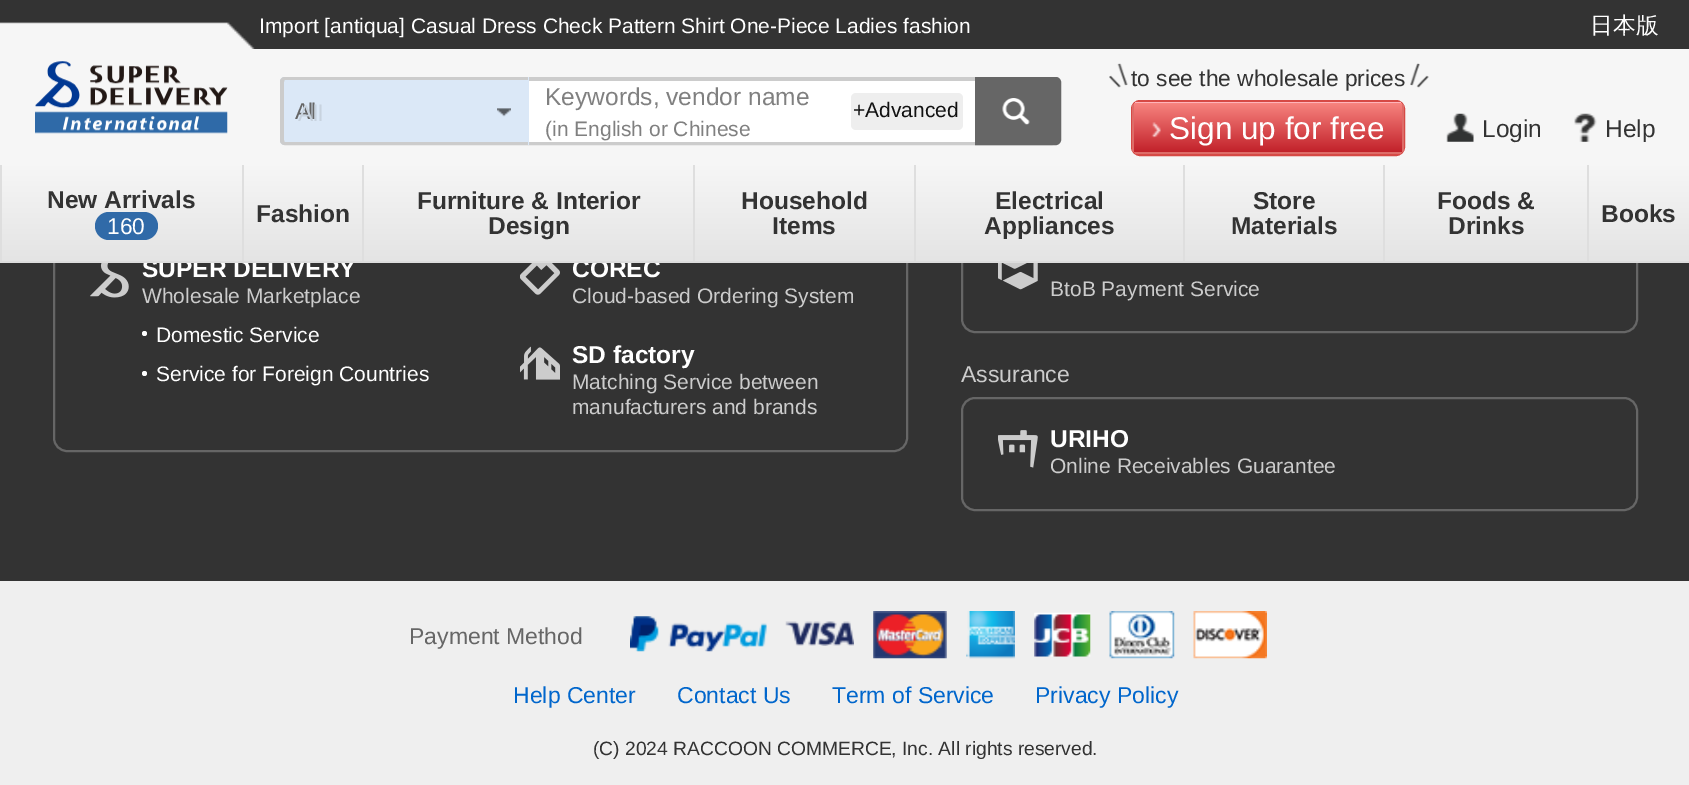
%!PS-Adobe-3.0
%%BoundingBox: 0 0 1689 785
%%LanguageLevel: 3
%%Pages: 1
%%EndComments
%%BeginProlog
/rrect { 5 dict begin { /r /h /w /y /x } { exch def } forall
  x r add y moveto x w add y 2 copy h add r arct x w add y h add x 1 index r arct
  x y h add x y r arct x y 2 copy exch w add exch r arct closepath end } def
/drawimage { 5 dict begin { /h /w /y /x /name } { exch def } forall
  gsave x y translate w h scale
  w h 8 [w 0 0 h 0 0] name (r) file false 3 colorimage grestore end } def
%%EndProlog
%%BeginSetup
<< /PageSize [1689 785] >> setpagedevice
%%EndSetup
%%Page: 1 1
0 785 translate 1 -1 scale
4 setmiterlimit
0.2 setgray
0 0 1689 785 rectfill
(images/1.raw) 0 22 255 27 drawimage
0.965 setgray
0 49 1689 116 rectfill
(images/2.raw) 35 61 193 73 drawimage
0.8 setgray
4 setlinewidth
282 79 773 64 3 rrect stroke
0.859 0.91 0.969 setrgbcolor
newpath 285 77 moveto 529 77 lineto 529 145 lineto 285 145 lineto 282 145 280 143 280 140 curveto 280 82 lineto 280 79 282 77 285 77 curveto closepath fill
0.8 setgray
newpath 285 77 moveto 528 77 lineto 528 145 lineto 285 145 lineto 282 145 280 143 280 140 curveto 280 82 lineto 280 79 282 77 285 77 curveto closepath 285 80 moveto 528 80 lineto 528 142 lineto 285 142 lineto 284 142 284 141 284 140 curveto 284 82 lineto 284 81 284 80 285 80 curveto closepath eofill
(images/3.raw) 497 108 14 9 drawimage
1 setgray
529 81 446 61 rectfill
0.933 setgray
851 93 112 37 5 rrect fill
0.4 setgray
newpath 976 78 moveto 1056 78 lineto 1058 78 1060 80 1060 82 curveto 1060 140 lineto 1060 142 1058 144 1056 144 curveto 976 144 lineto closepath gsave fill grestore
2 setlinewidth
stroke
(images/4.raw) 1002 98 28 27 drawimage
(images/5.raw) 1109 63 19 25 drawimage
(images/6.raw) 1410 63 19 25 drawimage
0.839 0.286 0.271 setrgbcolor
1132 101 272 54 8 rrect stroke
gsave
1132 102 272 52 7 rrect clip newpath
1 0.706 0.729 setrgbcolor
1132 102 272 2 rectfill
0.871 0.424 0.408 setrgbcolor
1402 102 2 52 rectfill
1132 152 272 2 rectfill
1132 102 2 52 rectfill
grestore
gsave newpath 1134 103 moveto 1402 103 lineto 1402 152 lineto 1134 152 lineto closepath clip newpath
<< /ShadingType 2 /ColorSpace /DeviceRGB /Coords [1134 152 1134 103] /Extend [true true] /Function << /FunctionType 2 /Domain [0 1] /C0 [0.761 0.133 0.165] /C1 [0.969 0.514 0.498] /N 1 >> >> shfill grestore
(images/7.raw) 1151 122 10 16 drawimage
(images/8.raw) 1446 113 28 29 drawimage
(images/9.raw) 1574 113 23 29 drawimage
0.871 setgray
0 165 2 96 rectfill
0.4 setgray
54 220 853 231 13 rrect stroke
(images/10.raw) 90 263 39 35 drawimage
1 setgray
newpath 144.5 333.5 2.5 0 360 arc closepath fill
newpath 144.5 373.5 2.5 0 360 arc closepath fill
(images/11.raw) 520 263 40 32 drawimage
(images/12.raw) 520 346 40 34 drawimage
0.4 setgray
962 220 675 112 13 rrect stroke
(images/13.raw) 998 263 40 27 drawimage
962 398 675 112 13 rrect stroke
(images/14.raw) 998 430 40 38 drawimage
0.937 setgray
0 581 1689 204 rectfill
(images/15.raw) 630 616 137 36 drawimage
(images/16.raw) 785 621 69 25 drawimage
(images/17.raw) 873 611 74 48 drawimage
(images/18.raw) 966 611 49 48 drawimage
(images/19.raw) 1034 612 57 45 drawimage
(images/20.raw) 1109 611 66 48 drawimage
(images/21.raw) 1193 611 74 48 drawimage
/LiberationSans-Regular [21 0 0 -21 0 0] selectfont
1 setgray
259 33 moveto (Import [antiqua] Casual Dress Check Pattern Shirt One-Piece Ladies fashion) show
/WenQuanYiZenHei-Medium [22.75 0 0 -22.75 0 0] selectfont
1590 33 moveto (日本版) show
/LiberationSans-Regular [22.75 0 0 -22.75 0 0] selectfont
0.4 setgray
295 119 moveto -2 0 (All) ashow
0.784 0.827 0.875 setrgbcolor
298 121 moveto (All) show
/LiberationSans-Regular [24.5 0 0 -24.5 0 0] selectfont
0.502 setgray
545 105 moveto (Keywords, vendor name) show
/LiberationSans-Regular [21 0 0 -21 0 0] selectfont
545 136 moveto (\(in English or Chinese) show
0.067 setgray
853 117 moveto (+Advanced) show
/LiberationSans-Regular [22.75 0 0 -22.75 0 0] selectfont
0.2 setgray
1131 86 moveto (to see the wholesale prices) show
/LiberationSans-Regular [31.5 0 0 -31.5 0 0] selectfont
1 setgray
1169 139 moveto (Sign up for free) show
/LiberationSans-Regular [24.5 0 0 -24.5 0 0] selectfont
0.2 setgray
1482 137 moveto (Login) show
1605 137 moveto (Help) show
/LiberationSans-Bold [24.5 0 0 -24.5 0 0] selectfont
1 setgray
142 277 moveto (SUPER DELIVERY) show
/LiberationSans-Regular [21 0 0 -21 0 0] selectfont
0.8 setgray
142 303 moveto (Wholesale Marketplace) show
1 setgray
156 342 moveto (Domestic Service) show
156 381 moveto (Service for Foreign Countries) show
/LiberationSans-Bold [24.5 0 0 -24.5 0 0] selectfont
572 277 moveto (COREC) show
gsave newpath 2 165 moveto 1689 165 lineto 1689 261 lineto 2 261 lineto closepath clip newpath
<< /ShadingType 2 /ColorSpace /DeviceRGB /Coords [0 261 0 165] /Extend [true true] /Function << /FunctionType 2 /Domain [0 1] /C0 [0.894 0.894 0.894] /C1 [0.965 0.965 0.965] /N 1 >> >> shfill grestore
0.2 setgray
1601 222 moveto (Books) show
1448 234 moveto (Drinks) show
1437 209 moveto (Foods &) show
0.871 setgray
1587 165 2 96 rectfill
0.2 setgray
1231 234 moveto (Materials) show
1253 209 moveto (Store) show
0.871 setgray
1383 165 2 96 rectfill
0.2 setgray
984 234 moveto (Appliances) show
995 209 moveto (Electrical) show
0.871 setgray
1183 165 2 96 rectfill
0.2 setgray
772 234 moveto (Items) show
741 209 moveto (Household) show
0.871 setgray
914 165 2 96 rectfill
0.2 setgray
488 234 moveto (Design) show
417 209 moveto (Furniture & Interior) show
0.871 setgray
693 165 2 96 rectfill
0.2 setgray
256 222 moveto (Fashion) show
0.871 setgray
362 165 2 96 rectfill
0.188 0.416 0.659 setrgbcolor
95 212 63 28 14 rrect fill
/LiberationSans-Regular [22.75 0 0 -22.75 0 0] selectfont
1 setgray
107 234 moveto (160) show
/LiberationSans-Bold [24.5 0 0 -24.5 0 0] selectfont
0.2 setgray
47 208 moveto (New Arrivals) show
0.871 setgray
242 165 2 96 rectfill
0.867 setgray
0 261 1689 2 rectfill
/LiberationSans-Regular [21 0 0 -21 0 0] selectfont
0.8 setgray
572 303 moveto (Cloud-based Ordering System) show
/LiberationSans-Bold [24.5 0 0 -24.5 0 0] selectfont
1 setgray
572 363 moveto (SD factory) show
/LiberationSans-Regular [21 0 0 -21 0 0] selectfont
0.8 setgray
572 389 moveto (Matching Service between) show
572 414 moveto (manufacturers and brands) show
1050 296 moveto (BtoB Payment Service) show
/LiberationSans-Regular [23 0 0 -23 0 0] selectfont
961 382 moveto (Assurance) show
/LiberationSans-Bold [24.5 0 0 -24.5 0 0] selectfont
1 setgray
1050 447 moveto (URIHO) show
/LiberationSans-Regular [21 0 0 -21 0 0] selectfont
0.8 setgray
1050 473 moveto (Online Receivables Guarantee) show
/LiberationSans-Regular [23 0 0 -23 0 0] selectfont
0.4 setgray
409 644 moveto (Payment Method) show
0 0.4 0.8 setrgbcolor
513 703 moveto (Help Center) show
677 703 moveto (Contact Us) show
832 703 moveto (Term of Service) show
1035 703 moveto (Privacy Policy) show
/LiberationSans-Regular [19.25 0 0 -19.25 0 0] selectfont
0.2 setgray
593 755 moveto (\(C\) 2024 RACCOON COMMERCE, Inc. All rights reserved.) show
showpage
%%EOF
